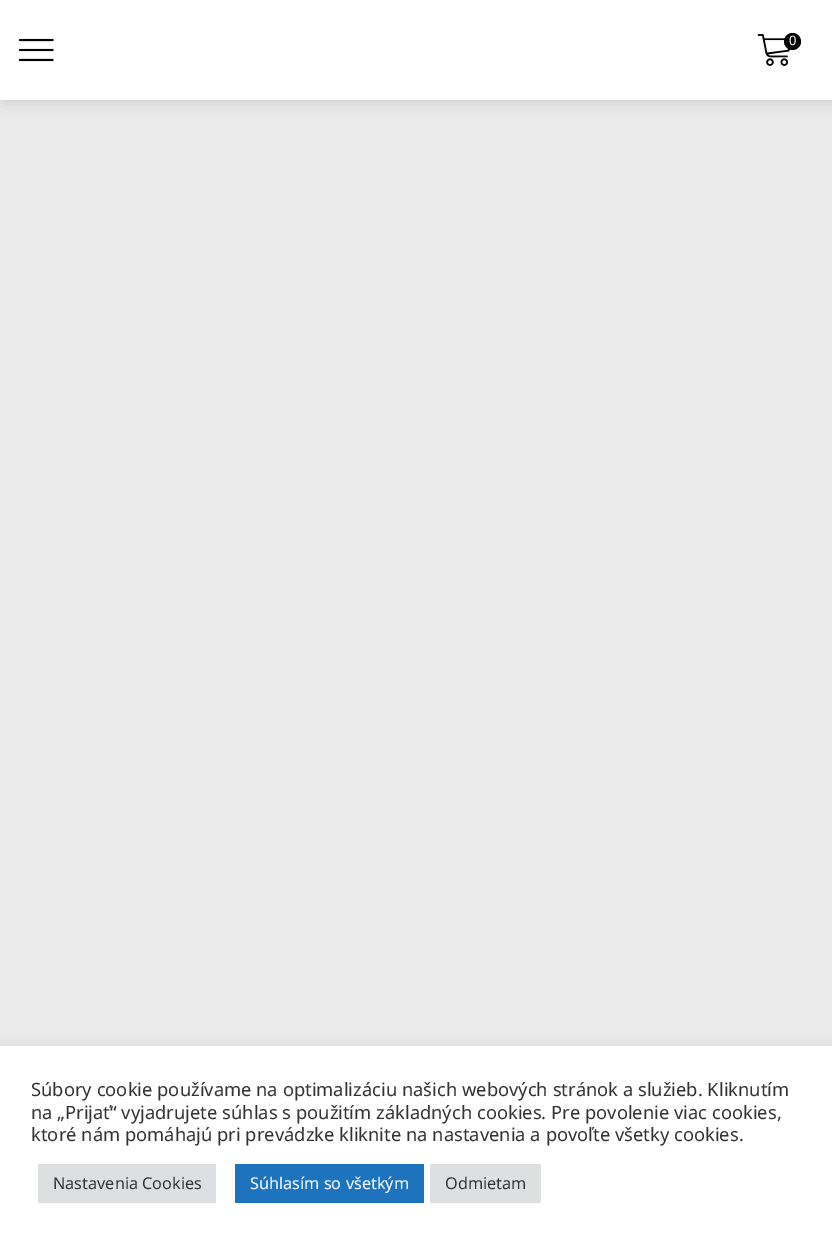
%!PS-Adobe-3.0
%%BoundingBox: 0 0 832 1240
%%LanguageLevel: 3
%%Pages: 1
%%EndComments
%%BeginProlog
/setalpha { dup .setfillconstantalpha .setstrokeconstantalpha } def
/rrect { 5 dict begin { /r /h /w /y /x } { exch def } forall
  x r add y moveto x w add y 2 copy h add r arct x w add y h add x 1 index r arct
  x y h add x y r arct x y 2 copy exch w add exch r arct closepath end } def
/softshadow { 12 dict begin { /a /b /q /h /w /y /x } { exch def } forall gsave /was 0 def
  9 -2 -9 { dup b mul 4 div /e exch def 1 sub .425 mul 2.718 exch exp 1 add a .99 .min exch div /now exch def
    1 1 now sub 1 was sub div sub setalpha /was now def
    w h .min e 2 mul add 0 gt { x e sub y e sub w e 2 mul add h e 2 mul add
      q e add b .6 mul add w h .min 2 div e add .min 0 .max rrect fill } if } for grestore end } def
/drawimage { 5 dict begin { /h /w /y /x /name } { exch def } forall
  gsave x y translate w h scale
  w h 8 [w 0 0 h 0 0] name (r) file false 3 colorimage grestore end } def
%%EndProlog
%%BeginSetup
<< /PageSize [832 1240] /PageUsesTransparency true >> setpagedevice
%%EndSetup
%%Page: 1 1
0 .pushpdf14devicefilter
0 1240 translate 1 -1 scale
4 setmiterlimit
0.918 setgray
0 0 832 1240 rectfill
0 setgray
3 0 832 100 0 7.5 0.15 softshadow
1 setgray
0 0 832 100 rectfill
(images/1.raw) 18 38 36 24 drawimage
(images/2.raw) 757 34 33 32 drawimage
0 setgray
newpath 792.5 41.5 8.5 0 360 arc closepath fill
0.675 0.671 0.671 setrgbcolor
0 1045 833 194 0 6 0.3 softshadow
1 setgray
0 1046 832 194 rectfill
0.871 0.875 0.878 setrgbcolor
38 1164 178 39 rectfill
0.118 0.451 0.745 setrgbcolor
235 1164 189 39 rectfill
0.871 0.875 0.878 setrgbcolor
430 1164 111 39 rectfill
/NotoSans-Regular [13 0 0 -13 0 0] selectfont
1 setgray
789 45 moveto (0) show
/NotoSans-Regular [18.35 0 0 -18.35 0 0] selectfont
0.2 setgray
31 1096 moveto (Súbory cookie používame na optimalizáciu našich webových stránok a služieb. Kliknutím) show
31 1119 moveto (na „Prijať“ vyjadrujete súhlas s použitím základných cookies. Pre povolenie viac cookies,) show
31 1141 moveto (ktoré nám pomáhajú pri prevádzke kliknite na nastavenia a povoľte všetky cookies.) show
/NotoSans-Regular [16.25 0 0 -16.25 0 0] selectfont
53 1189 moveto (Nastavenia Cookies) show
1 setgray
250 1189 moveto (Súhlasím so všetkým) show
0.2 setgray
445 1189 moveto (Odmietam) show
.poppdf14devicefilter showpage
%%EOF
